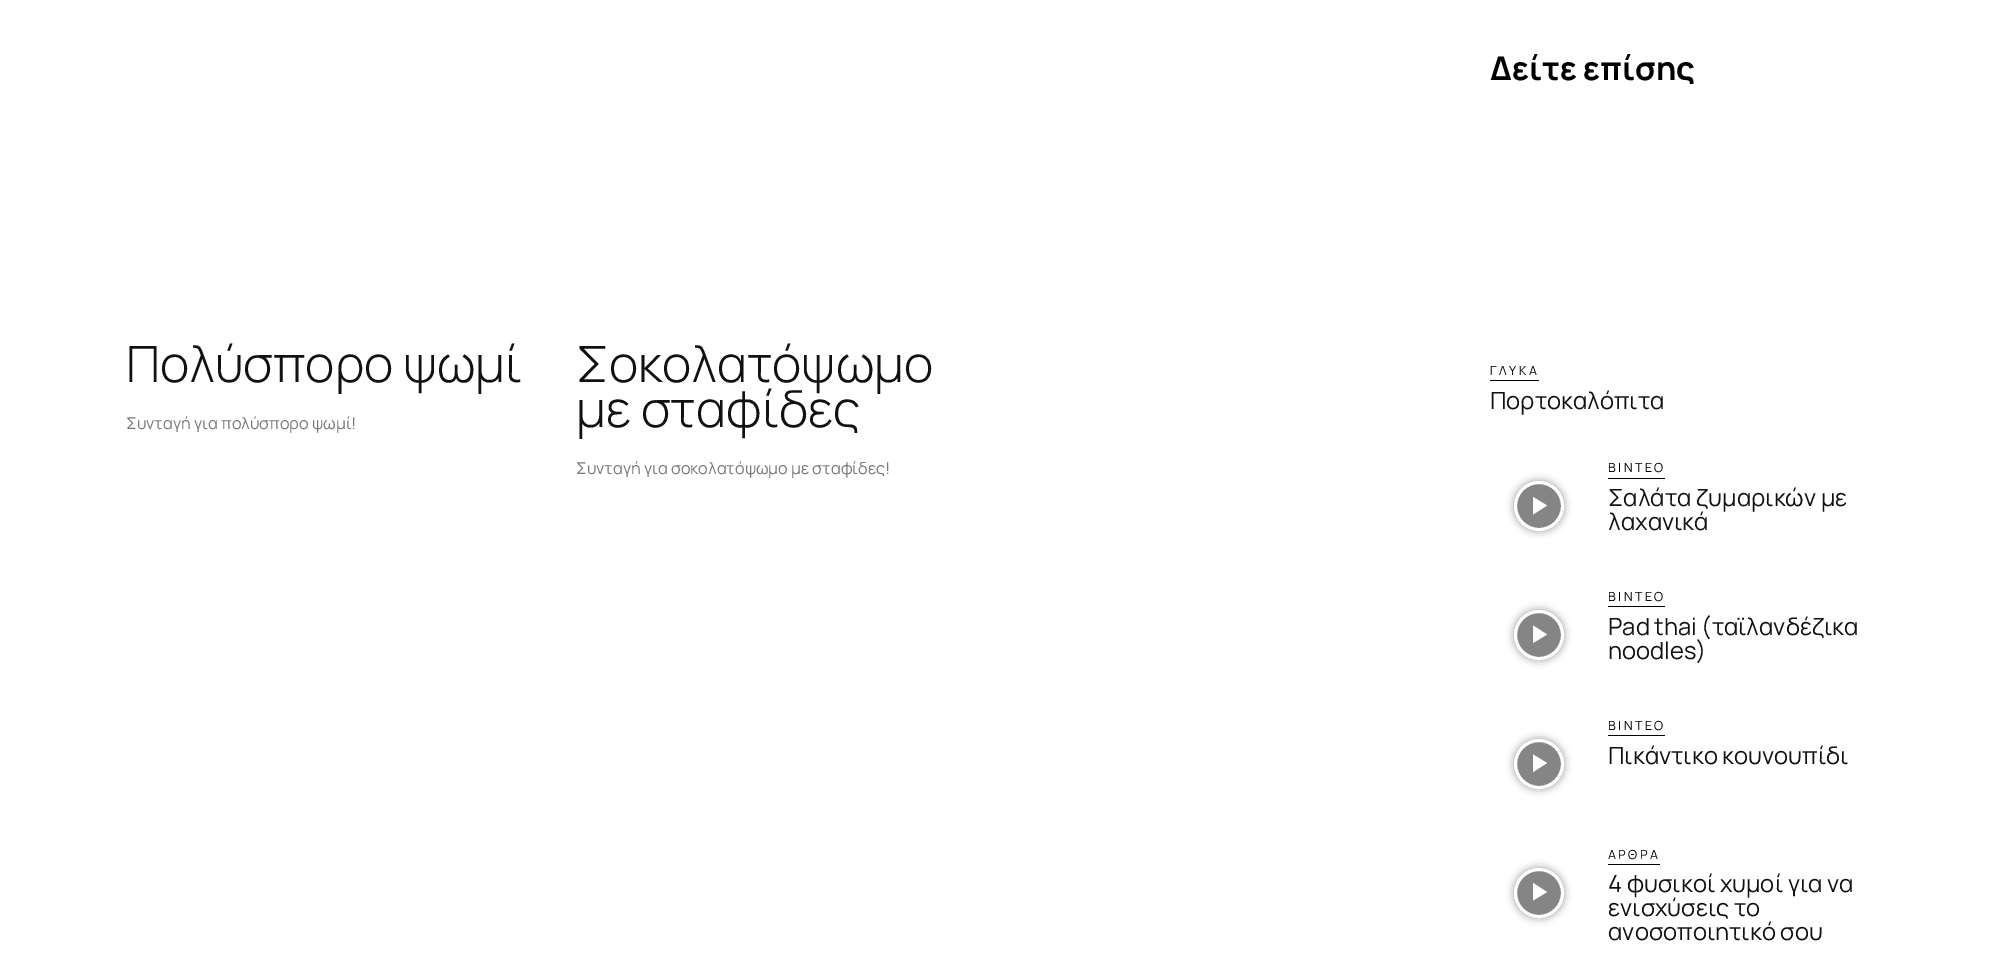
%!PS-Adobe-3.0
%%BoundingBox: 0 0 1989 956
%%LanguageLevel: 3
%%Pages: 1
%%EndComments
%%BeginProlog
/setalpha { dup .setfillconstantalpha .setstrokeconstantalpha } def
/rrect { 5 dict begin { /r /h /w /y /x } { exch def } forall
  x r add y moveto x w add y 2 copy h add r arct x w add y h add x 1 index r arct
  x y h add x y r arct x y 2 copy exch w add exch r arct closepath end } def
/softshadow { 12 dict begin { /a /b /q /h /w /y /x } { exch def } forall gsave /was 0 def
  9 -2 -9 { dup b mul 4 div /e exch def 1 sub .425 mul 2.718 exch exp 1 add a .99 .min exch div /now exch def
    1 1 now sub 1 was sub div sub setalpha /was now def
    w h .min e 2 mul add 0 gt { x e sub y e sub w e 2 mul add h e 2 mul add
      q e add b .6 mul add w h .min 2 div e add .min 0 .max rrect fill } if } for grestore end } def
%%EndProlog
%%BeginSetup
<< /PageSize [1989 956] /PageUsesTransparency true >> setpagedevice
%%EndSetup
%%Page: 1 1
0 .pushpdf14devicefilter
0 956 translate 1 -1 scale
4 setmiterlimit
1 setgray
0 0 1989 956 rectfill
0 setgray
1490 380 49 1 rectfill
gsave
newpath 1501 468 moveto 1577 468 lineto 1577 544 lineto 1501 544 lineto closepath 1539 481 moveto 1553 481 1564 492 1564 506 curveto 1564 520 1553 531 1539 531 curveto 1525 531 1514 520 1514 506 curveto 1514 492 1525 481 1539 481 curveto closepath eoclip newpath
1514 481 50 50 25 4 0.4 softshadow
grestore
0.48 setalpha
newpath 1539 506 23.5 0 360 arc closepath fill
1 setalpha
1 setgray
3 setlinewidth
newpath 1539 506 23.5 0 360 arc closepath stroke
newpath 1533 497 moveto 1533 514.5 lineto 1547 505.5 lineto closepath fill
0 setgray
1608 478 57 1 rectfill
gsave
newpath 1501 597 moveto 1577 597 lineto 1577 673 lineto 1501 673 lineto closepath 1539 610 moveto 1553 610 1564 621 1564 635 curveto 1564 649 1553 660 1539 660 curveto 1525 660 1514 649 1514 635 curveto 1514 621 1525 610 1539 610 curveto closepath eoclip newpath
1514 610 50 50 25 4 0.4 softshadow
grestore
0.48 setalpha
newpath 1539 635 23.5 0 360 arc closepath fill
1 setalpha
1 setgray
newpath 1539 635 23.5 0 360 arc closepath stroke
newpath 1533 625.5 moveto 1533 643 lineto 1547 634.5 lineto closepath fill
0 setgray
1608 606 57 1 rectfill
gsave
newpath 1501 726 moveto 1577 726 lineto 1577 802 lineto 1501 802 lineto closepath 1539 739 moveto 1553 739 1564 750 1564 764 curveto 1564 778 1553 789 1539 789 curveto 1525 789 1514 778 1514 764 curveto 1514 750 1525 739 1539 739 curveto closepath eoclip newpath
1514 739 50 50 25 4 0.4 softshadow
grestore
0.48 setalpha
newpath 1539 764 23.5 0 360 arc closepath fill
1 setalpha
1 setgray
newpath 1539 764 23.5 0 360 arc closepath stroke
newpath 1533 754.5 moveto 1533 772 lineto 1547 763 lineto closepath fill
0 setgray
1608 735 57 1 rectfill
gsave
newpath 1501 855 moveto 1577 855 lineto 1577 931 lineto 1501 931 lineto closepath 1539 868 moveto 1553 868 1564 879 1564 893 curveto 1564 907 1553 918 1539 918 curveto 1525 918 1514 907 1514 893 curveto 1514 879 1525 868 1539 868 curveto closepath eoclip newpath
1514 868 50 50 25 4 0.4 softshadow
grestore
0.48 setalpha
newpath 1539 893 23.5 0 360 arc closepath fill
1 setalpha
1 setgray
newpath 1539 893 23.5 0 360 arc closepath stroke
newpath 1533 883 moveto 1533 900.5 lineto 1547 892 lineto closepath fill
0 setgray
1608 864 52 1 rectfill
/Manrope-Light [50 0 0 -50 0 0] selectfont
0.067 setgray
126 382 moveto (Πολύσπορο ψωμί) show
/Manrope-Regular [16.25 0 0 -16.25 0 0] selectfont
0.463 setgray
126 429 moveto (Συνταγή για πολύσπορο ψωμί!) show
/Manrope-Light [50 0 0 -50 0 0] selectfont
0.067 setgray
576 382 moveto (Σοκολατόψωμο) show
576 427 moveto (με σταφίδες) show
/Manrope-Regular [16.25 0 0 -16.25 0 0] selectfont
0.463 setgray
576 474 moveto (Συνταγή για σοκολατόψωμο με σταφίδες!) show
/Manrope-Bold [32.5 0 0 -32.5 0 0] selectfont
0 setgray
1490 80 moveto (Δείτε επίσης) show
/Manrope-Regular [12.5 0 0 -12.5 0 0] selectfont
1490 375 moveto 2.5 0 (ΓΛΥΚΑ) ashow
/Manrope-Regular [23.75 0 0 -23.75 0 0] selectfont
0.067 setgray
1490 409 moveto (Πορτοκαλόπιτα) show
/Manrope-Regular [12.5 0 0 -12.5 0 0] selectfont
0 setgray
1608 472 moveto 2.5 0 (ΒΙΝΤΕΟ) ashow
/Manrope-Regular [23.75 0 0 -23.75 0 0] selectfont
0.067 setgray
1608 506 moveto (Σαλάτα ζυμαρικών με) show
1608 530 moveto (λαχανικά) show
/Manrope-Regular [12.5 0 0 -12.5 0 0] selectfont
0 setgray
1608 601 moveto 2.5 0 (ΒΙΝΤΕΟ) ashow
/Manrope-Regular [23.75 0 0 -23.75 0 0] selectfont
0.067 setgray
1608 635 moveto (Pad thai \(ταϊλανδέζικα) show
1608 659 moveto (noodles\)) show
/Manrope-Regular [12.5 0 0 -12.5 0 0] selectfont
0 setgray
1608 730 moveto 2.5 0 (ΒΙΝΤΕΟ) ashow
/Manrope-Regular [23.75 0 0 -23.75 0 0] selectfont
0.067 setgray
1608 764 moveto (Πικάντικο κουνουπίδι) show
/Manrope-Regular [12.5 0 0 -12.5 0 0] selectfont
0 setgray
1608 859 moveto 2.5 0 (ΑΡΘΡΑ) ashow
/Manrope-Regular [23.75 0 0 -23.75 0 0] selectfont
0.067 setgray
1608 892 moveto (4 φυσικοί χυμοί για να) show
1608 916 moveto (ενισχύσεις το) show
1608 940 moveto (ανοσοποιητικό σου) show
.poppdf14devicefilter showpage
%%EOF
